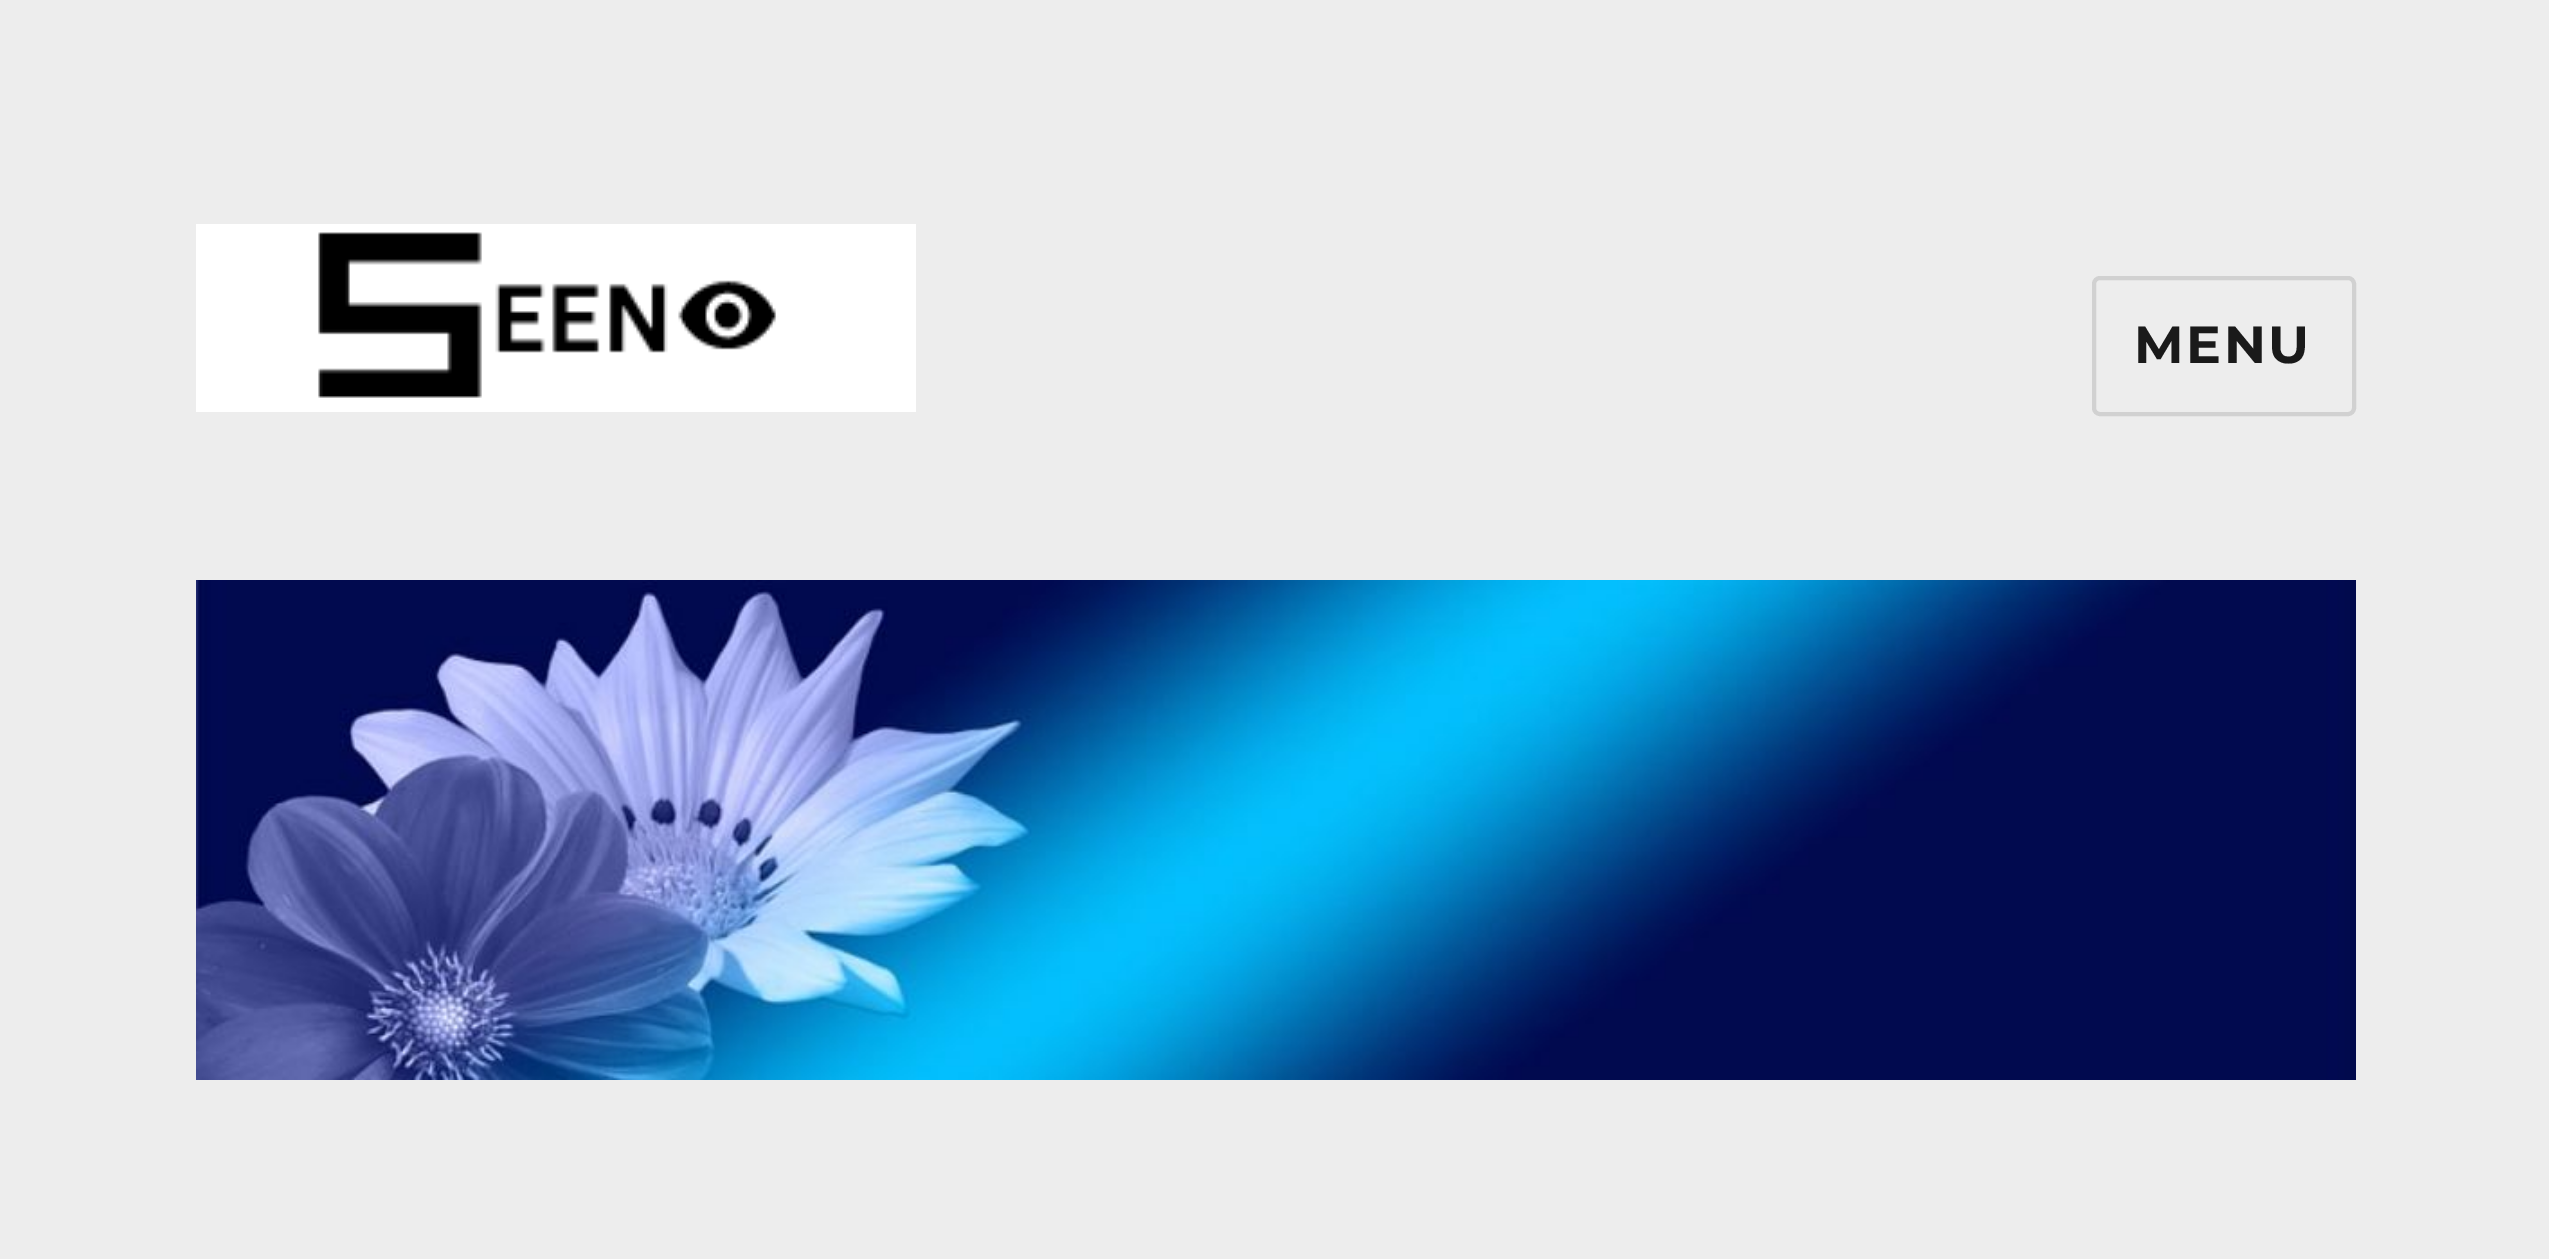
%!PS-Adobe-3.0
%%BoundingBox: 0 0 2549 1259
%%LanguageLevel: 3
%%Pages: 1
%%EndComments
%%BeginProlog
/rrect { 5 dict begin { /r /h /w /y /x } { exch def } forall
  x r add y moveto x w add y 2 copy h add r arct x w add y h add x 1 index r arct
  x y h add x y r arct x y 2 copy exch w add exch r arct closepath end } def
/drawimage { 5 dict begin { /h /w /y /x /name } { exch def } forall
  gsave x y translate w h scale
  w h 8 [w 0 0 h 0 0] name (r) file false 3 colorimage grestore end } def
%%EndProlog
%%BeginSetup
<< /PageSize [2549 1259] >> setpagedevice
%%EndSetup
%%Page: 1 1
0 1259 translate 1 -1 scale
4 setmiterlimit
0.929 setgray
0 0 2549 1259 rectfill
(images/1.raw) 196 224 720 188 drawimage
0.82 setgray
4 setlinewidth
2094 278 260 136 6 rrect stroke
(images/2.raw) 196 580 2160 500 drawimage
/Montserrat-Bold [52 0 0 -52 0 0] selectfont
0.102 setgray
2134 363 moveto 2.5 0 (MENU) ashow
showpage
%%EOF
